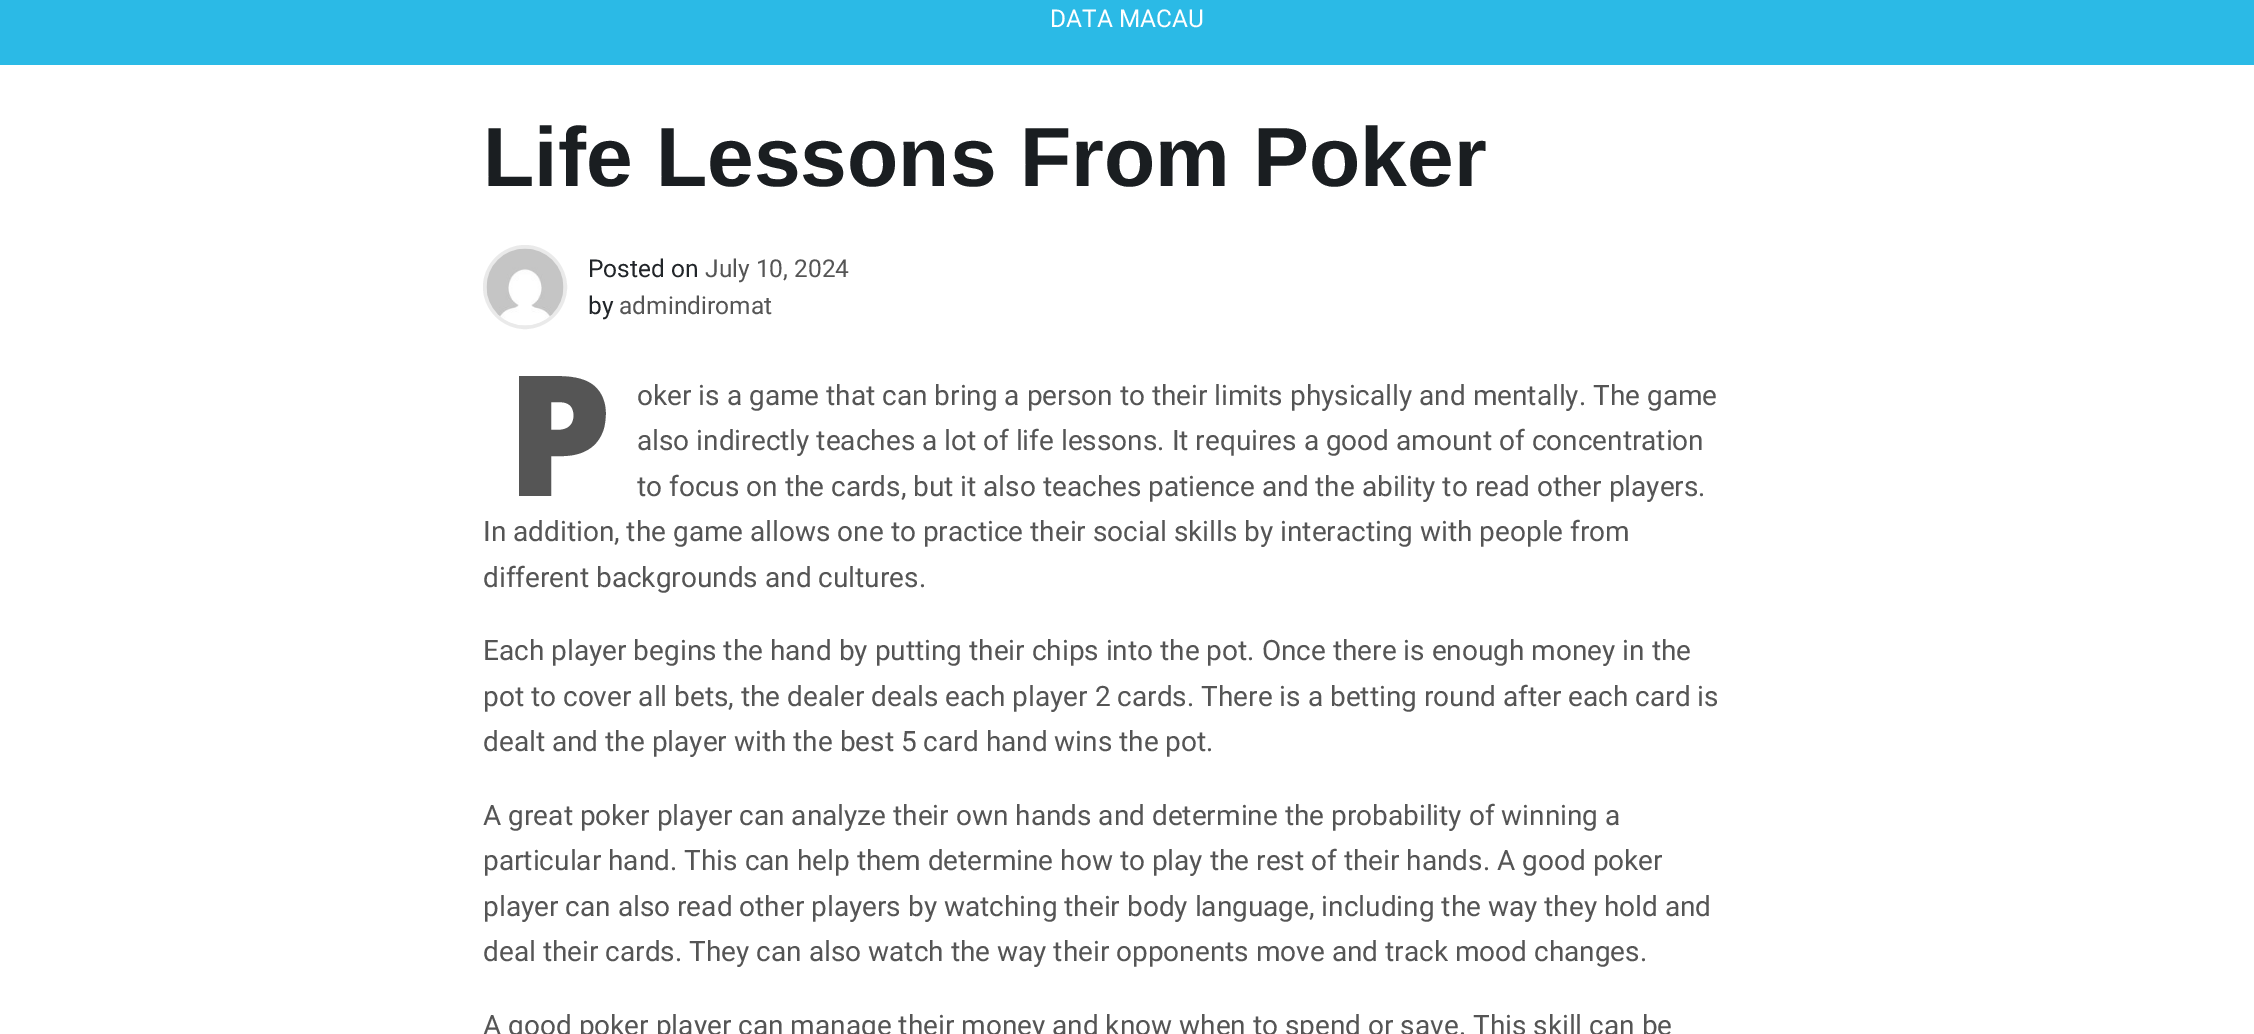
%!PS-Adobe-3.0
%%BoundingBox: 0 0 2254 1034
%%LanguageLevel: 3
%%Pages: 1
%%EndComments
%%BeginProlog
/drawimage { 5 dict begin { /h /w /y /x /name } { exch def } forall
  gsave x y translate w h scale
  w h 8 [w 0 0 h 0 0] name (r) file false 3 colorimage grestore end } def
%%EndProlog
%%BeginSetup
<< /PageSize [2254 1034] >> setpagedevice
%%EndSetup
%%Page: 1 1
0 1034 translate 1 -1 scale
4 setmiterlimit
1 setgray
0 0 2254 1034 rectfill
0.169 0.729 0.902 setrgbcolor
0 0 2254 65 rectfill
0.918 setgray
4 setlinewidth
newpath 525 287 40 0 360 arc closepath stroke
(images/1.raw) 486 248 78 78 drawimage
/Roboto-Regular [24.5 0 0 -24.5 0 0] selectfont
1 setgray
1050 27 moveto (DATA MACAU) show
/LiberationSans-Bold [84 0 0 -84 0 0] selectfont
0.102 0.118 0.129 setrgbcolor
483 186 moveto (Life Lessons From Poker) show
/Roboto-Regular [24.5 0 0 -24.5 0 0] selectfont
0.129 0.145 0.161 setrgbcolor
588 277 moveto (Posted on) show
0.333 setgray
705 277 moveto (July 10, 2024) show
0.129 0.145 0.161 setrgbcolor
588 314 moveto (by) show
0.333 setgray
619 314 moveto (admindiromat) show
/NotoSans-Black [168 0 0 -168 0 0] selectfont
506 496 moveto (P) show
/Roboto-Regular [28 0 0 -28 0 0] selectfont
637 405 moveto (oker is a game that can bring a person to their limits physically and mentally. The game) show
637 450 moveto (also indirectly teaches a lot of life lessons. It requires a good amount of concentration) show
637 496 moveto (to focus on the cards, but it also teaches patience and the ability to read other players.) show
483 541 moveto (In addition, the game allows one to practice their social skills by interacting with people from) show
483 587 moveto (different backgrounds and cultures.) show
483 660 moveto (Each player begins the hand by putting their chips into the pot. Once there is enough money in the) show
483 706 moveto (pot to cover all bets, the dealer deals each player 2 cards. There is a betting round after each card is) show
483 751 moveto (dealt and the player with the best 5 card hand wins the pot.) show
483 825 moveto (A great poker player can analyze their own hands and determine the probability of winning a) show
483 870 moveto (particular hand. This can help them determine how to play the rest of their hands. A good poker) show
483 916 moveto (player can also read other players by watching their body language, including the way they hold and) show
483 961 moveto (deal their cards. They can also watch the way their opponents move and track mood changes.) show
483 1035 moveto (A good poker player can manage their money and know when to spend or save. This skill can be) show
showpage
%%EOF
